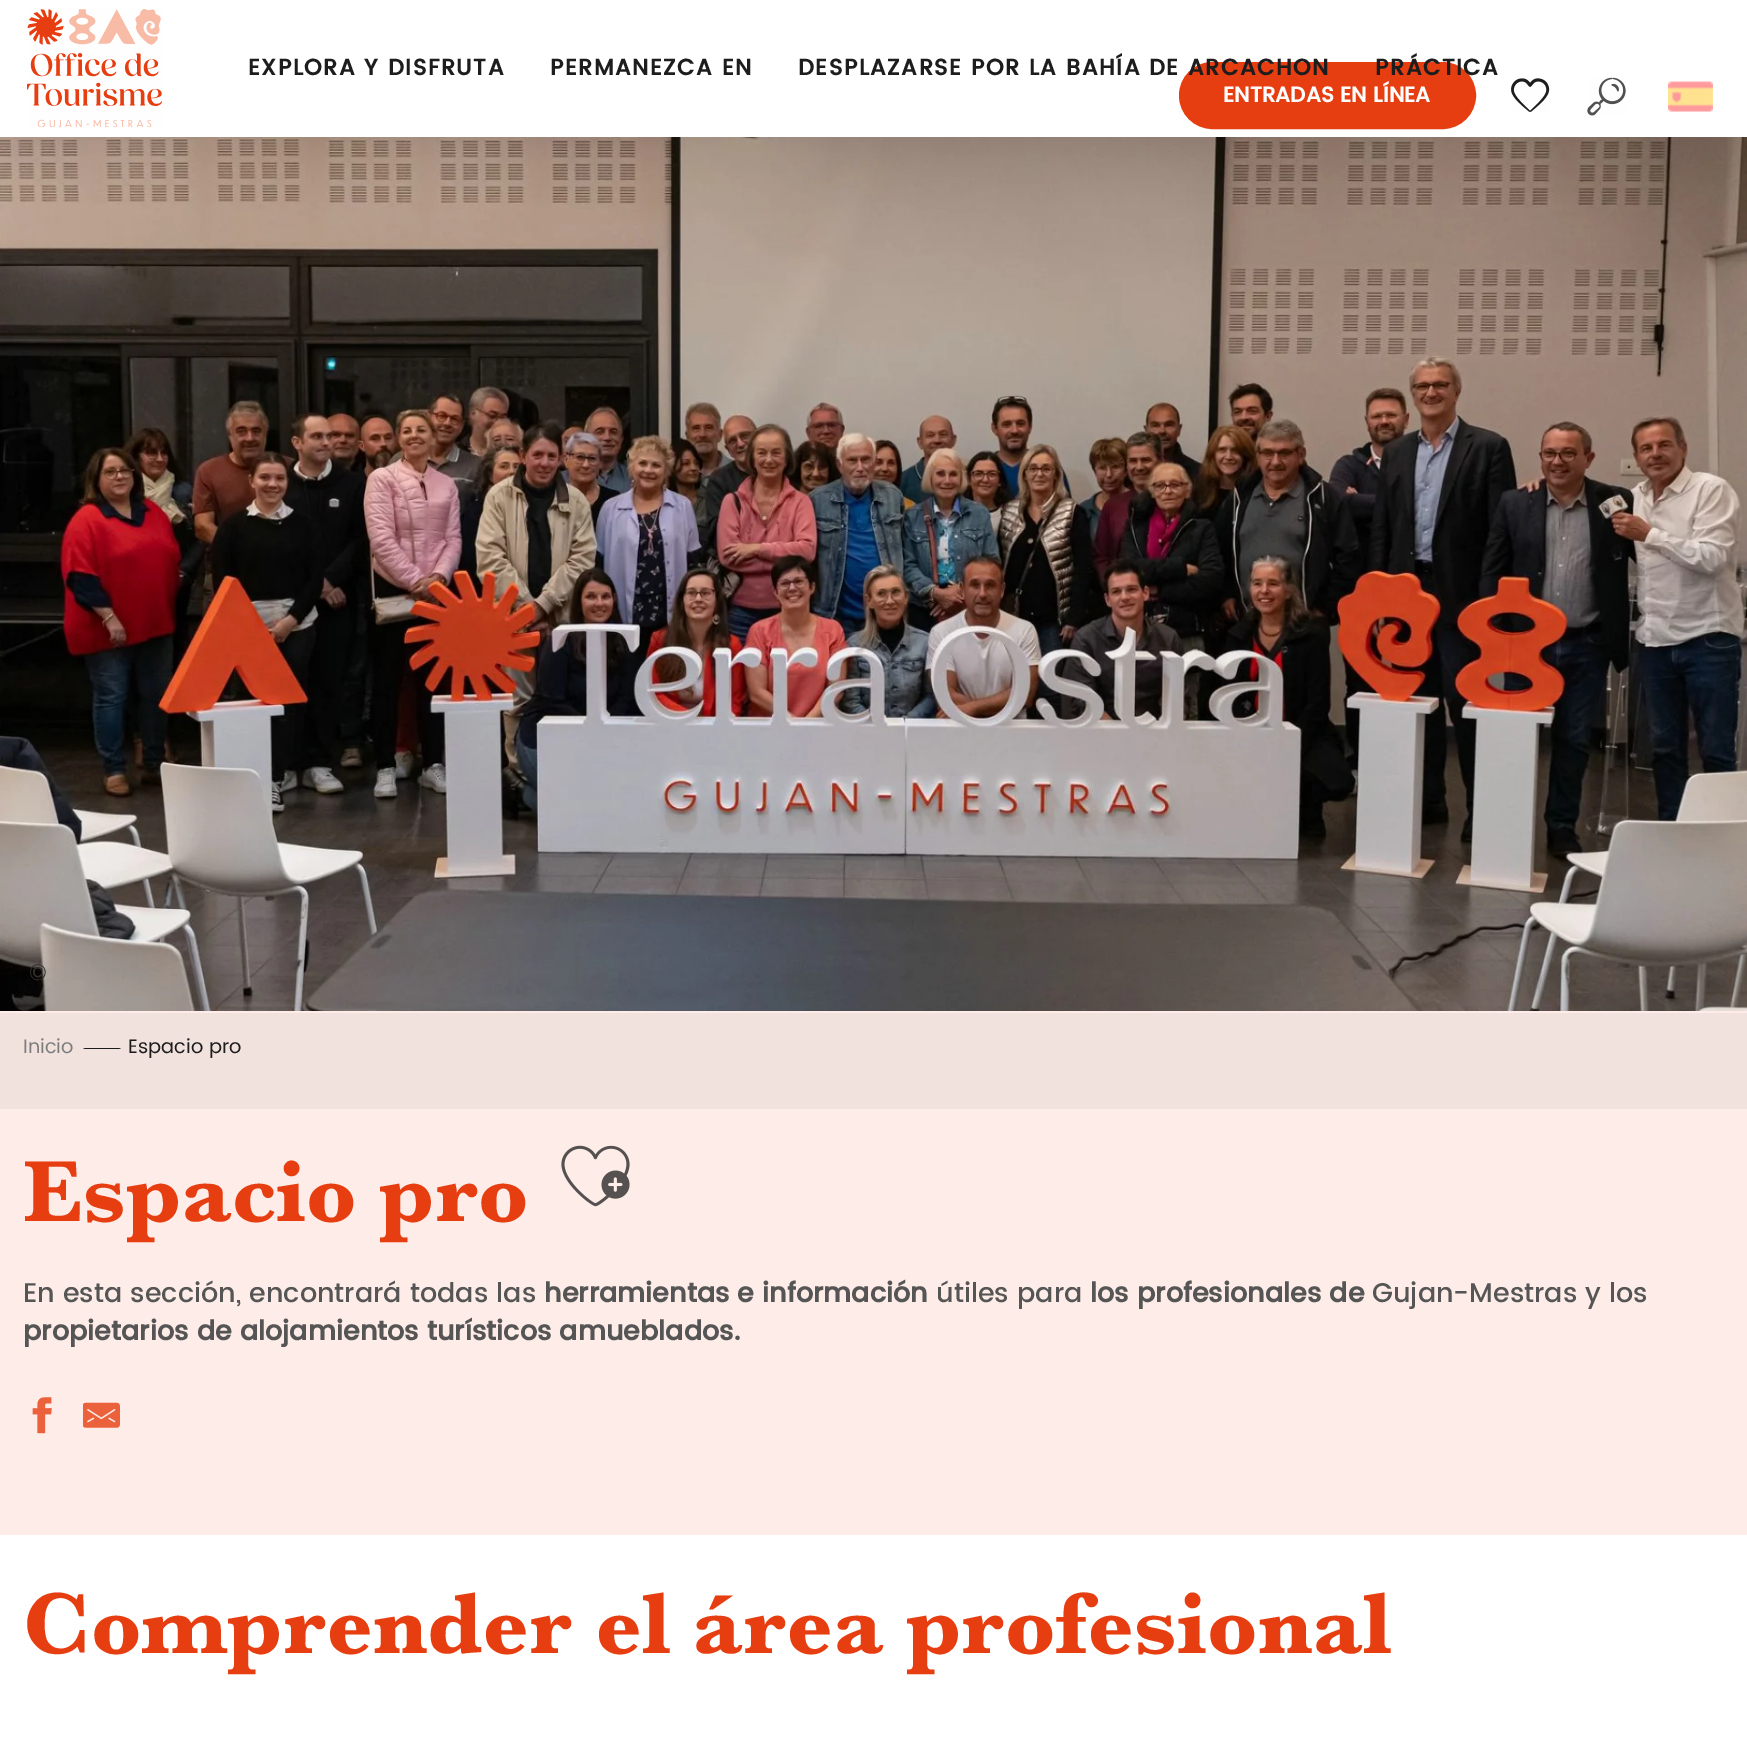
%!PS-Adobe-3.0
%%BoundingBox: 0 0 1747 1758
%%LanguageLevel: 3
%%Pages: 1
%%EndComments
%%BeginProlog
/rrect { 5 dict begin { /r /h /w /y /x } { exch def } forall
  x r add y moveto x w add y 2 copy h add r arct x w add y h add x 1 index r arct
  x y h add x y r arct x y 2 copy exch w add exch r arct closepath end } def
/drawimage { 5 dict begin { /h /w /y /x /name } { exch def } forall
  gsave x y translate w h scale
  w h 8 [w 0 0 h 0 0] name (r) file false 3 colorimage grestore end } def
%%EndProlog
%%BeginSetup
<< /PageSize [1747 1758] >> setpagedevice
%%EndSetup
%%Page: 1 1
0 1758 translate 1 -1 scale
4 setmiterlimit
1 setgray
0 0 1747 1758 rectfill
(images/1.raw) 27 9 135 119 drawimage
0.906 0.243 0.067 setrgbcolor
2 setlinewidth
1180 63 295 65 32.5 rrect stroke
(images/3.raw) 1587 77 39 39 drawimage
(images/5.raw) 0 137 1747 874 drawimage
gsave
1181 63 294 65 32.5 rrect clip newpath
newpath 1328 137 300 0 360 arc closepath fill
grestore
(images/2.raw) 1511 78 39 34 drawimage
(images/4.raw) 1668 81 45 31 drawimage
0.992 0.925 0.906 setrgbcolor
0 1011 1747 524 rectfill
0.945 0.886 0.867 setrgbcolor
0 1013 1747 96 rectfill
0.114 setgray
newpath 83 1048 moveto 85 1049 lineto 121 1049 lineto 119 1048 lineto closepath fill
(images/6.raw) 561 1145 69 62 drawimage
(images/7.raw) 32 1397 20 37 drawimage
(images/8.raw) 83 1402 37 26 drawimage
/Poppins-Bold [22.5 0 0 -22.5 0 0] selectfont
248 75 moveto 1.5 0 (EXPLORA Y DISFRUTA) ashow
550 75 moveto 1.5 0 (PERMANEZCA EN) ashow
798 75 moveto 1.5 0 (DESPLAZARSE POR LA BAHÍA DE ARCACHON) ashow
1375 75 moveto 1.5 0 (PRÁCTICA) ashow
/Poppins-Bold [21.5 0 0 -21.5 0 0] selectfont
0.996 setgray
1223 102 moveto (ENTRADAS EN LÍNEA) show
/Poppins-Regular [22.5 0 0 -22.5 0 0] selectfont
0.192 0.176 0.165 setrgbcolor
29 980 moveto (©) show
/Poppins-Regular [19.5 0 0 -19.5 0 0] selectfont
0.494 setgray
23 1053 moveto (Inicio) show
0.114 setgray
128 1053 moveto (Espacio pro) show
/Baskerville-Bold [90 0 0 -90 0 0] selectfont
0.906 0.243 0.067 setrgbcolor
23 1221 moveto (Espacio pro) show
/Poppins-Medium [27 0 0 -27 0 0] selectfont
0.333 setgray
23 1302 moveto (En esta sección, encontrará todas las) show
/Poppins-Bold [27 0 0 -27 0 0] selectfont
544 1302 moveto (herramientas e información) show
/Poppins-Medium [27 0 0 -27 0 0] selectfont
936 1302 moveto (útiles para) show
/Poppins-Bold [27 0 0 -27 0 0] selectfont
1090 1302 moveto (los profesionales de) show
/Poppins-Medium [27 0 0 -27 0 0] selectfont
1372 1302 moveto (Gujan-Mestras y los) show
/Poppins-Bold [27 0 0 -27 0 0] selectfont
23 1340 moveto (propietarios de alojamientos turísticos amueblados.) show
/Baskerville-Bold [90 0 0 -90 0 0] selectfont
0.906 0.243 0.067 setrgbcolor
23 1653 moveto (Comprender el área profesional) show
showpage
%%EOF
